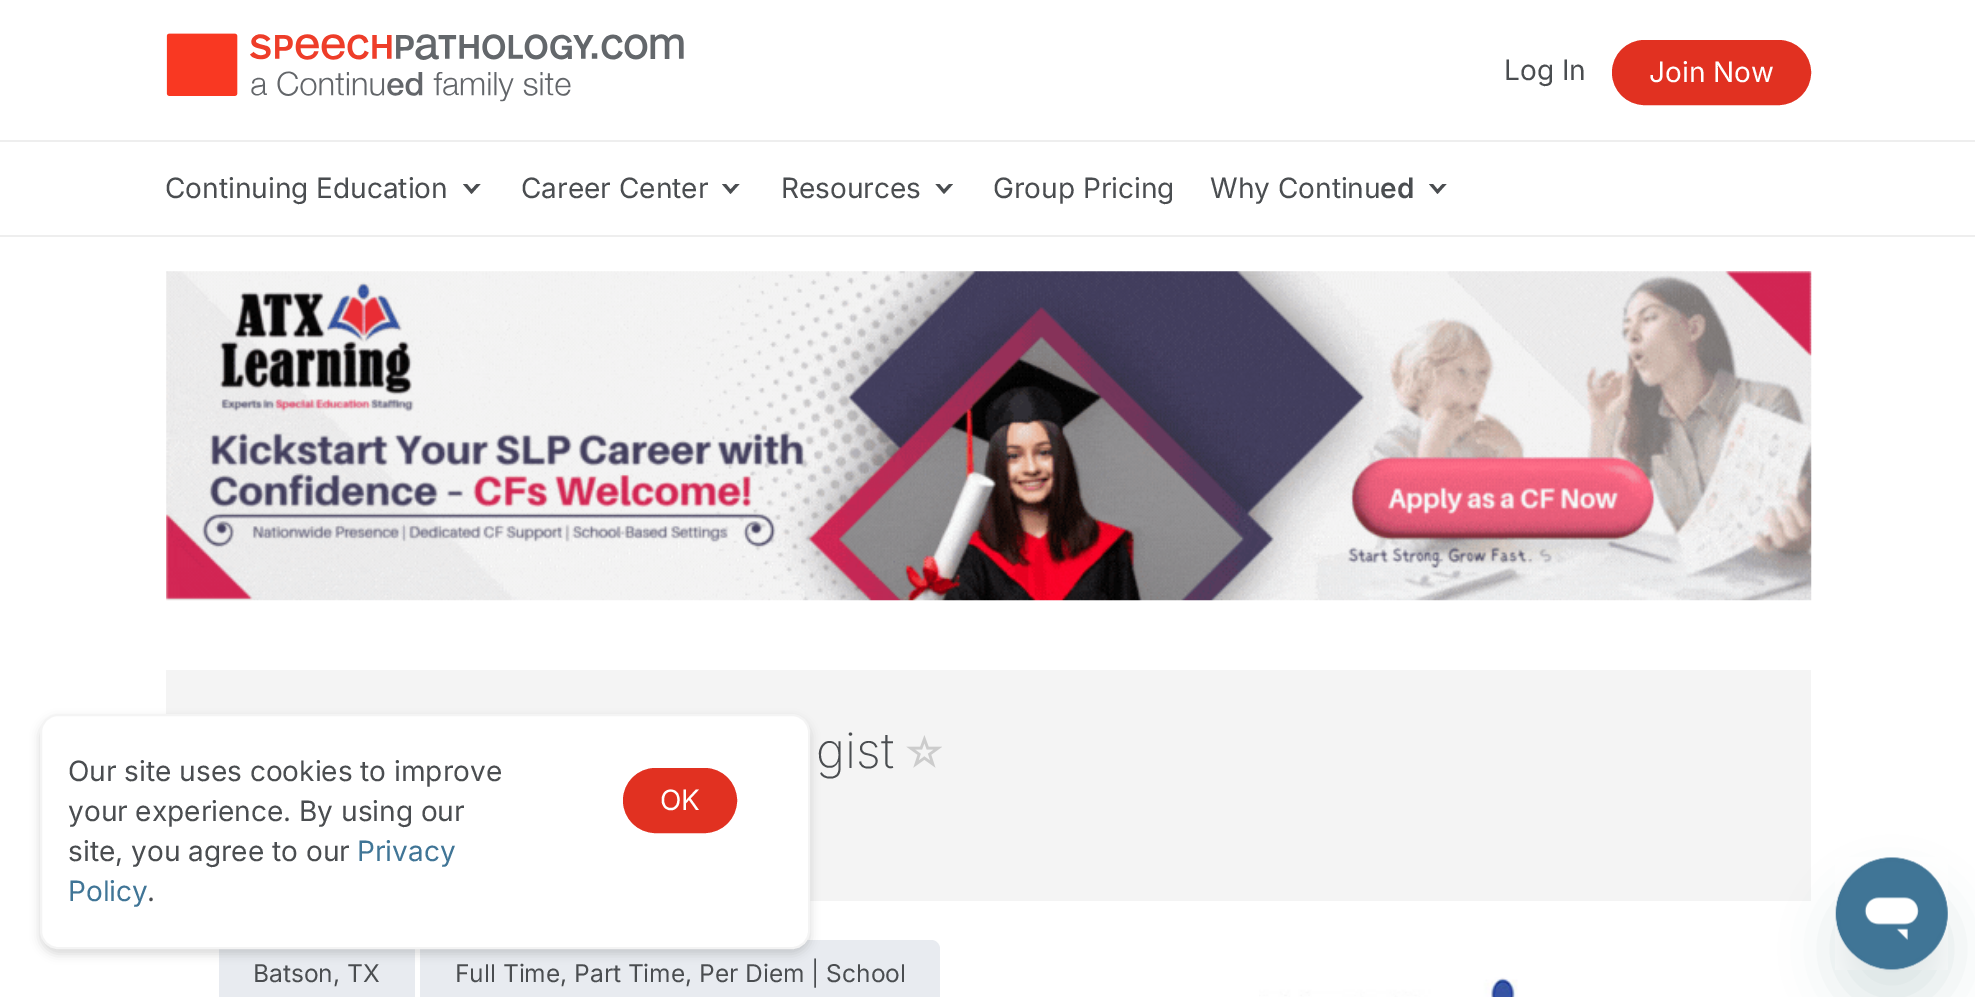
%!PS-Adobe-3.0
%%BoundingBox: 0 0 1975 997
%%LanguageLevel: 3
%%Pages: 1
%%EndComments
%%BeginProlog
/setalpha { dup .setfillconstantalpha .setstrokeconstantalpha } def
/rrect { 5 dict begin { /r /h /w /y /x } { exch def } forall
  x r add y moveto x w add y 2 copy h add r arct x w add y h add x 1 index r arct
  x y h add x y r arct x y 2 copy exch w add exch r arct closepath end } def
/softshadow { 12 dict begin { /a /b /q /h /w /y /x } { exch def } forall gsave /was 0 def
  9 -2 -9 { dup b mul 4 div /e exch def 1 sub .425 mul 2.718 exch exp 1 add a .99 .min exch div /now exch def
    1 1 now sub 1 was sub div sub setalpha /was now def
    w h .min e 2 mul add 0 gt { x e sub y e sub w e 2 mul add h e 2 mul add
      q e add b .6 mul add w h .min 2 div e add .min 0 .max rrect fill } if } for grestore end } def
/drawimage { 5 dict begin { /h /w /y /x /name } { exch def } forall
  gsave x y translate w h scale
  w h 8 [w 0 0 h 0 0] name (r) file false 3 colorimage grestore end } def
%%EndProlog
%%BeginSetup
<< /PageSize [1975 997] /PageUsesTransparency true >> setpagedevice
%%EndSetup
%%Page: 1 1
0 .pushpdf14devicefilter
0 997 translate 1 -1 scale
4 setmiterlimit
1 setgray
0 0 1975 997 rectfill
(images/1.raw) 166 33 518 69 drawimage
0.882 0.192 0.129 setrgbcolor
1613 41 197 63 31.5 rrect gsave fill grestore
2 setlinewidth
stroke
0.933 setgray
0 140 1975 2 rectfill
0.29 0.302 0.314 setrgbcolor
newpath 476.5 184 moveto 471.5 189.5 lineto 467 184 lineto 463 184 lineto 471.5 194 lineto 480.5 184 lineto closepath fill
newpath 735.5 184 moveto 730.5 189.5 lineto 726 184 lineto 722 184 lineto 730.5 194 lineto 739.5 184 lineto closepath fill
newpath 949 184 moveto 944 189.5 lineto 939.5 184 lineto 935.5 184 lineto 944 194 lineto 953 184 lineto closepath fill
newpath 1442.5 184 moveto 1437.5 189.5 lineto 1433 184 lineto 1429 184 lineto 1437.5 194 lineto 1446.5 184 lineto closepath fill
0.933 setgray
0 235 1975 2 rectfill
(images/2.raw) 166 271 1646 330 drawimage
0.957 setgray
166 670 1645 231 rectfill
(images/3.raw) 906 735 36 33 drawimage
0.91 0.922 0.941 setrgbcolor
219 949 196 48 rectfill
420 940 520 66 9 rrect fill
(images/4.raw) 1259 977 259 20 drawimage
0 setgray
40 719 770 235 18 5 0.15 softshadow
1 setgray
41 715 768 233 17 rrect gsave fill grestore
0.957 setgray
stroke
0.882 0.192 0.129 setrgbcolor
624 769 112 63 31.5 rrect gsave fill grestore
stroke
0.09 0.286 0.302 setrgbcolor
1836 893 112 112 56 26 0.15 softshadow
(images/5.raw) 1835 857 113 113 drawimage
/Inter-Regular [28 0 0 -28 0 0] selectfont
0.29 0.302 0.314 setrgbcolor
1504 80 moveto (Log In) show
1 setgray
1649 82 moveto (Join Now) show
0.29 0.302 0.314 setrgbcolor
165 198 moveto (Continuing Education) show
521 198 moveto (Career Center) show
781 198 moveto (Resources) show
993 198 moveto (Group Pricing) show
1210 198 moveto (Why Continu) show
/Inter-SemiBold [28 0 0 -28 0 0] selectfont
1380 198 moveto (ed) show
/Inter-ExtraLight [49 0 0 -49 0 0] selectfont
816 768 moveto (gist) show
/Inter-Regular [24.5 0 0 -24.5 0 0] selectfont
253 982 moveto (Batson, TX) show
455 982 moveto (Full Time, Part Time, Per Diem | School) show
/Inter-Regular [28 0 0 -28 0 0] selectfont
68 781 moveto (Our site uses cookies to improve) show
68 821 moveto (your experience. By using our) show
68 861 moveto (site, you agree to our) show
0.251 0.459 0.588 setrgbcolor
357 861 moveto (Privacy) show
68 901 moveto (Policy) show
0.29 0.302 0.314 setrgbcolor
147 901 moveto (.) show
1 setgray
660 810 moveto (OK) show
.poppdf14devicefilter showpage
%%EOF
